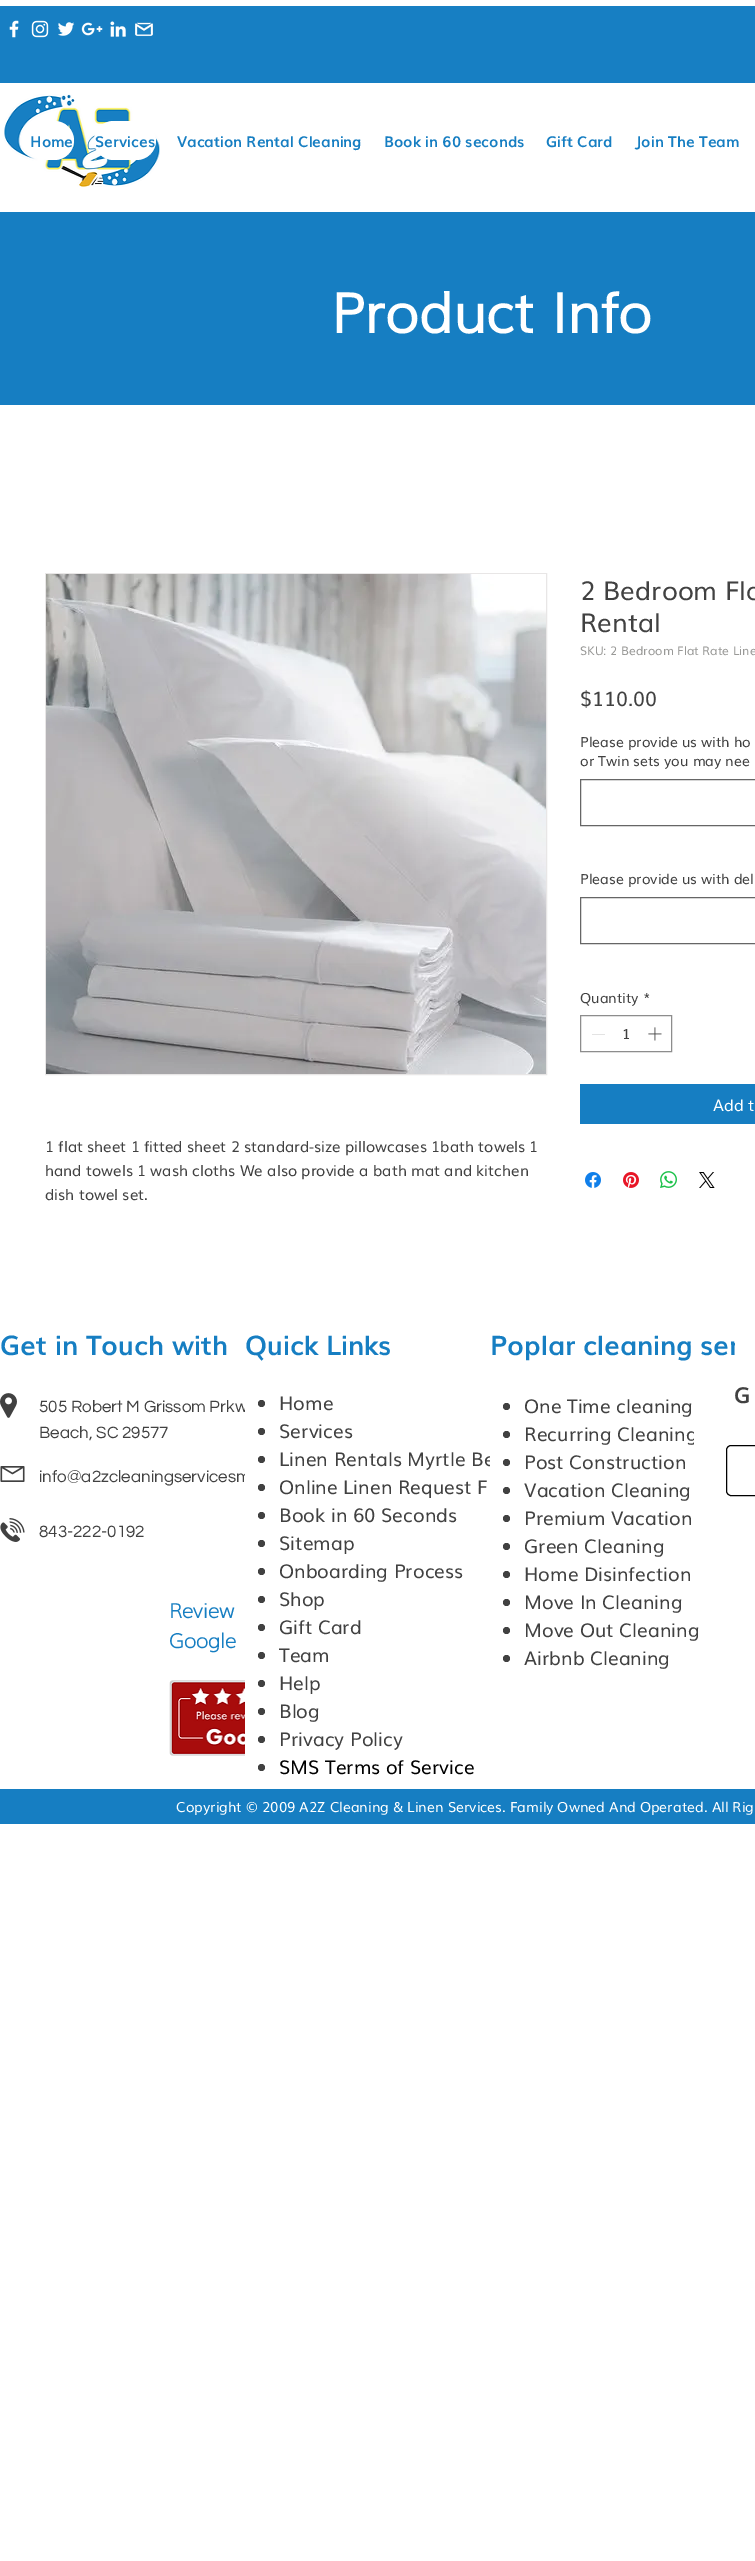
%!PS-Adobe-3.0
%%BoundingBox: 0 0 755 2561
%%LanguageLevel: 3
%%Pages: 1
%%EndComments
%%BeginProlog
/rrect { 5 dict begin { /r /h /w /y /x } { exch def } forall
  x r add y moveto x w add y 2 copy h add r arct x w add y h add x 1 index r arct
  x y h add x y r arct x y 2 copy exch w add exch r arct closepath end } def
/drawimage { 5 dict begin { /h /w /y /x /name } { exch def } forall
  gsave x y translate w h scale
  w h 8 [w 0 0 h 0 0] name (r) file false 3 colorimage grestore end } def
%%EndProlog
%%BeginSetup
<< /PageSize [755 2561] >> setpagedevice
%%EndSetup
%%Page: 1 1
0 2561 translate 1 -1 scale
4 setmiterlimit
1 setgray
0 0 755 2561 rectfill
0.09 0.498 0.765 setrgbcolor
0 6 755 77 rectfill
(images/1.raw) 9 20 10 18 drawimage
(images/2.raw) 31 20 18 18 drawimage
(images/3.raw) 58 22 17 14 drawimage
(images/4.raw) 81 22 22 14 drawimage
(images/5.raw) 110 21 16 16 drawimage
(images/6.raw) 134 22 20 15 drawimage
(images/7.raw) 4 94 156 93 drawimage
1 setgray
29 121 45 39 19.5 rrect fill
94 121 62 39 19.5 rrect fill
0.086 0.494 0.761 setrgbcolor
0 212 755 193 rectfill
0.4 setgray
580.5 779.5 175 46 rectstroke
580.5 897.5 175 46 rectstroke
0.553 setgray
580.5 1015.5 91 36 rectstroke
0.89 setgray
592 1034 13 1 rectfill
(images/8.raw) 648 1027 14 14 drawimage
0.086 0.494 0.761 setrgbcolor
580 1084 175 40 rectfill
(images/9.raw) 585 1172 16 16 drawimage
(images/10.raw) 623 1172 16 16 drawimage
(images/11.raw) 660 1171 17 17 drawimage
(images/12.raw) 699 1172 16 16 drawimage
0.91 0.902 0.902 setrgbcolor
45.5 573.5 501 501 rectstroke
(images/13.raw) 46 574 500 500 drawimage
(images/14.raw) 0 1393 17 25 drawimage
(images/15.raw) 0 1466 25 16 drawimage
(images/16.raw) 0 1518 25 24 drawimage
(images/17.raw) 169 1680 76 76 drawimage
0.255 setgray
newpath 261.5 1403.5 3.5 0 360 arc closepath fill
newpath 261.5 1431.5 3.5 0 360 arc closepath fill
newpath 261.5 1459.5 3.5 0 360 arc closepath fill
newpath 261.5 1487.5 3.5 0 360 arc closepath fill
newpath 261.5 1515.5 3.5 0 360 arc closepath fill
newpath 261.5 1543.5 3.5 0 360 arc closepath fill
newpath 261.5 1571.5 3.5 0 360 arc closepath fill
newpath 261.5 1599.5 3.5 0 360 arc closepath fill
newpath 261.5 1627.5 3.5 0 360 arc closepath fill
newpath 261.5 1655.5 3.5 0 360 arc closepath fill
newpath 261.5 1683.5 3.5 0 360 arc closepath fill
newpath 261.5 1711.5 3.5 0 360 arc closepath fill
newpath 261.5 1739.5 3.5 0 360 arc closepath fill
newpath 261.5 1767.5 3.5 0 360 arc closepath fill
newpath 506.5 1406.5 3.5 0 360 arc closepath fill
newpath 506.5 1434.5 3.5 0 360 arc closepath fill
newpath 506.5 1462.5 3.5 0 360 arc closepath fill
newpath 506.5 1490.5 3.5 0 360 arc closepath fill
newpath 506.5 1518.5 3.5 0 360 arc closepath fill
newpath 506.5 1546.5 3.5 0 360 arc closepath fill
newpath 506.5 1574.5 3.5 0 360 arc closepath fill
newpath 506.5 1602.5 3.5 0 360 arc closepath fill
newpath 506.5 1630.5 3.5 0 360 arc closepath fill
newpath 506.5 1658.5 3.5 0 360 arc closepath fill
0 setgray
726.5 1445.5 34 50 4.5 rrect stroke
0.086 0.494 0.761 setrgbcolor
0 1789 755 35 rectfill
/Muli-Bold [15 0 0 -15 0 0] selectfont
30 147 moveto (Home) show
95 147 moveto (Services) show
177 147 moveto (Vacation Rental Cleaning) show
384 147 moveto (Book in 60 seconds) show
546 147 moveto (Gift Card) show
634 147 moveto (Join The Team) show
/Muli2-Bold [55 0 0 -55 0 0] selectfont
1 setgray
331 333 moveto (Product Info) show
/Muli-Regular [26 0 0 -26 0 0] selectfont
0.255 setgray
580 600 moveto (2 Bedroom Fla) show
580 632 moveto (Rental) show
/Muli-Regular [12 0 0 -12 0 0] selectfont
0.6 0.6 0.592 setrgbcolor
580 655 moveto (SKU: 2 Bedroom Flat Rate Line) show
/Muli-Regular [20 0 0 -20 0 0] selectfont
0.255 setgray
580 706 moveto ($110.00) show
/Muli-Regular [14 0 0 -14 0 0] selectfont
580 747 moveto (Please provide us with ho) show
580 766 moveto (or Twin sets you may nee) show
580 884 moveto (Please provide us with del) show
580 1003 moveto (Quantity *) show
622 1039 moveto (1) show
/Muli-Regular [16 0 0 -16 0 0] selectfont
1 setgray
713 1111 moveto (Add t) show
/Muli-Regular [15 0 0 -15 0 0] selectfont
0.255 setgray
45 1152 moveto (1 flat sheet 1 fitted sheet 2 standard-size pillowcases 1bath towels 1) show
45 1176 moveto (hand towels 1 wash cloths We also provide a bath mat and kitchen) show
45 1200 moveto (dish towel set.) show
/Muli-Bold [27 0 0 -27 0 0] selectfont
0.086 0.494 0.761 setrgbcolor
0 1355 moveto (Get in Touch with) show
/Questrial-Regular [17 0 0 -17 0 0] selectfont
0.255 setgray
39 1412 moveto (505 Robert M Grissom Prkw) show
39 1438 moveto (Beach, SC 29577) show
39 1482 moveto (info@a2zcleaningservicesm) show
39 1537 moveto (843-222-0192) show
/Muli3-Bold [20 0 0 -20 0 0] selectfont
0.086 0.494 0.761 setrgbcolor
169 1618 moveto (Review) show
169 1648 moveto (Google) show
/Muli-Bold [27 0 0 -27 0 0] selectfont
245 1355 moveto (Quick Links) show
/Muli-Regular [19 0 0 -19 0 0] selectfont
0.255 setgray
279 1410 moveto (Home) show
279 1438 moveto (Services) show
279 1466 moveto (Linen Rentals Myrtle Be) show
279 1494 moveto (Online Linen Request F) show
279 1522 moveto (Book in 60 Seconds) show
279 1550 moveto (Sitemap) show
279 1578 moveto (Onboarding Process) show
279 1606 moveto (Shop) show
279 1634 moveto (Gift Card) show
279 1662 moveto (Team) show
279 1690 moveto (Help) show
279 1718 moveto (Blog) show
279 1746 moveto (Privacy Policy) show
0 setgray
279 1774 moveto (SMS Terms of Service) show
1 setgray
245 1403 5 79 rectfill
/Muli-Bold [27 0 0 -27 0 0] selectfont
0.086 0.494 0.761 setrgbcolor
490 1355 moveto (Poplar cleaning ser) show
/Muli-Regular [19 0 0 -19 0 0] selectfont
0.255 setgray
524 1413 moveto (One Time cleaning) show
524 1441 moveto (Recurring Cleaning) show
524 1469 moveto (Post Construction) show
524 1497 moveto (Vacation Cleaning) show
524 1525 moveto (Premium Vacation) show
524 1553 moveto (Green Cleaning) show
524 1581 moveto (Home Disinfection) show
524 1609 moveto (Move In Cleaning) show
524 1637 moveto (Move Out Cleaning) show
524 1665 moveto (Airbnb Cleaning) show
1 setgray
490 1456 4 11 rectfill
735 1341 5 5 rectfill
/Muli-Bold [22 0 0 -22 0 0] selectfont
0.255 setgray
734 1403 moveto (G) show
1 setgray
694 1431 3 14 rectfill
/Muli-Regular [14 0 0 -14 0 0] selectfont
176 1812 moveto (Copyright © 2009 A2Z Cleaning & Linen Services. Family Owned And Operated. All Rig) show
showpage
%%EOF
